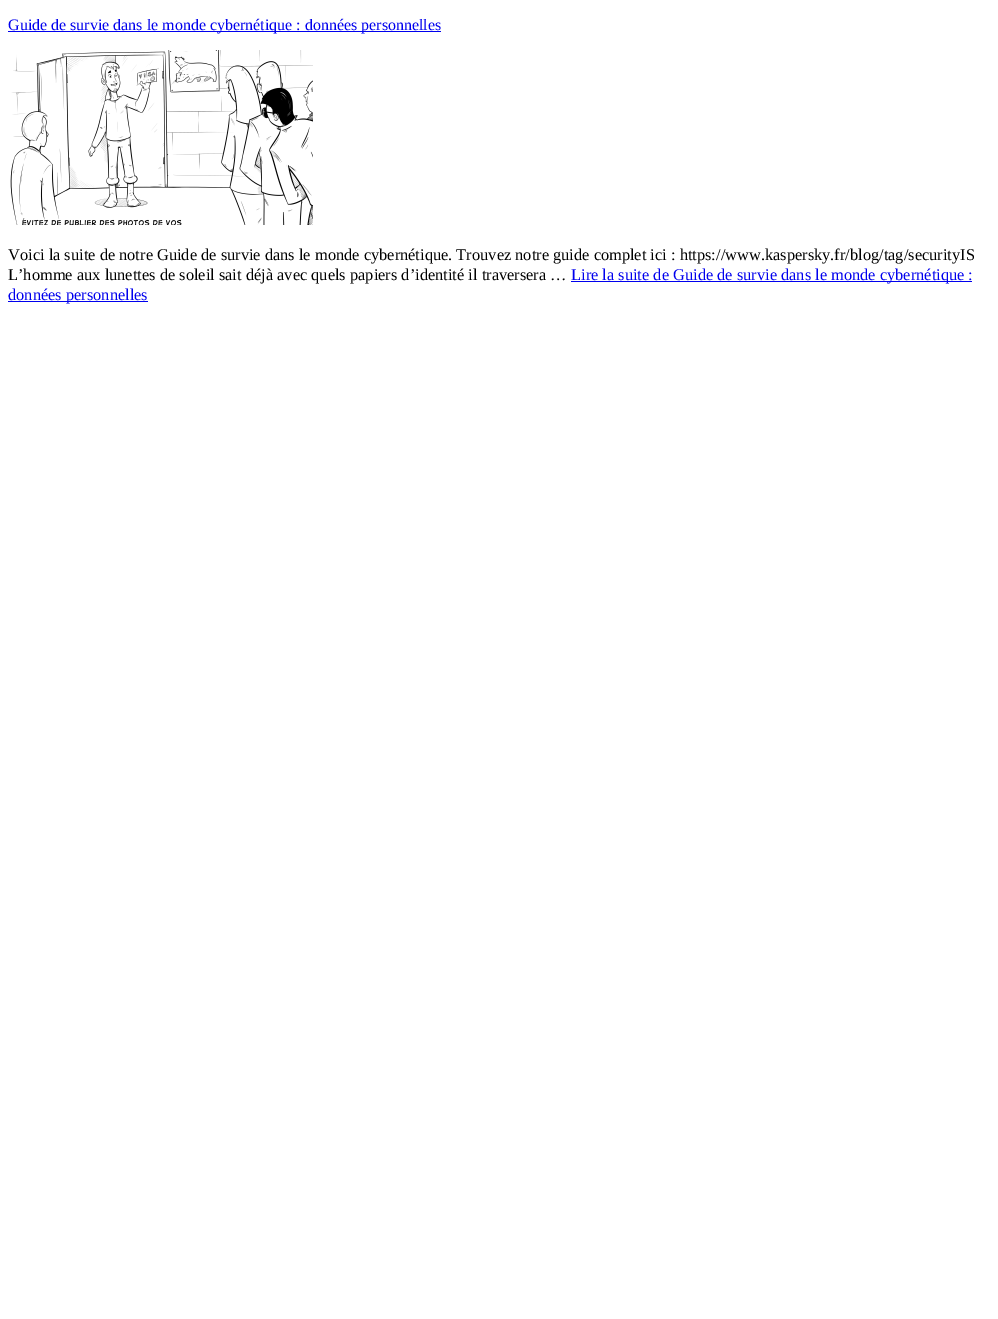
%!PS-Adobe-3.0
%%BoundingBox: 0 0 998 1319
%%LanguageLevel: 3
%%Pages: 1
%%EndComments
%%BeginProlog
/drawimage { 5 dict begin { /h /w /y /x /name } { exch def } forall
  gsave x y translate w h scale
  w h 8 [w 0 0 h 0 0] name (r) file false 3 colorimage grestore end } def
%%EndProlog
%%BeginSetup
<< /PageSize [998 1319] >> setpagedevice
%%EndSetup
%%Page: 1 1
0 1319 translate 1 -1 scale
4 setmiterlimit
1 setgray
0 0 998 1319 rectfill
0 0 0.933 setrgbcolor
8 31 433 1 rectfill
(images/1.raw) 10 50 303 175 drawimage
571 281 401 1 rectfill
8 301 140 1 rectfill
/LiberationSerif-Regular [16 0 0 -16 0 0] selectfont
8 30 moveto (Guide de survie dans le monde cybernétique : données personnelles) show
/LiberationSerif-Regular [16.4 0 0 -16.4 0 0] selectfont
0 setgray
8 260 moveto (Voici la suite de notre Guide de survie dans le monde cybernétique. Trouvez notre guide complet ici : https://www.kaspersky.fr/blog/tag/securityIS) show
8 280 moveto (L’homme aux lunettes de soleil sait déjà avec quels papiers d’identité il traversera …) show
0 0 0.933 setrgbcolor
571 280 moveto (Lire la suite de Guide de survie dans le monde cybernétique :) show
8 300 moveto (données personnelles) show
showpage
%%EOF
